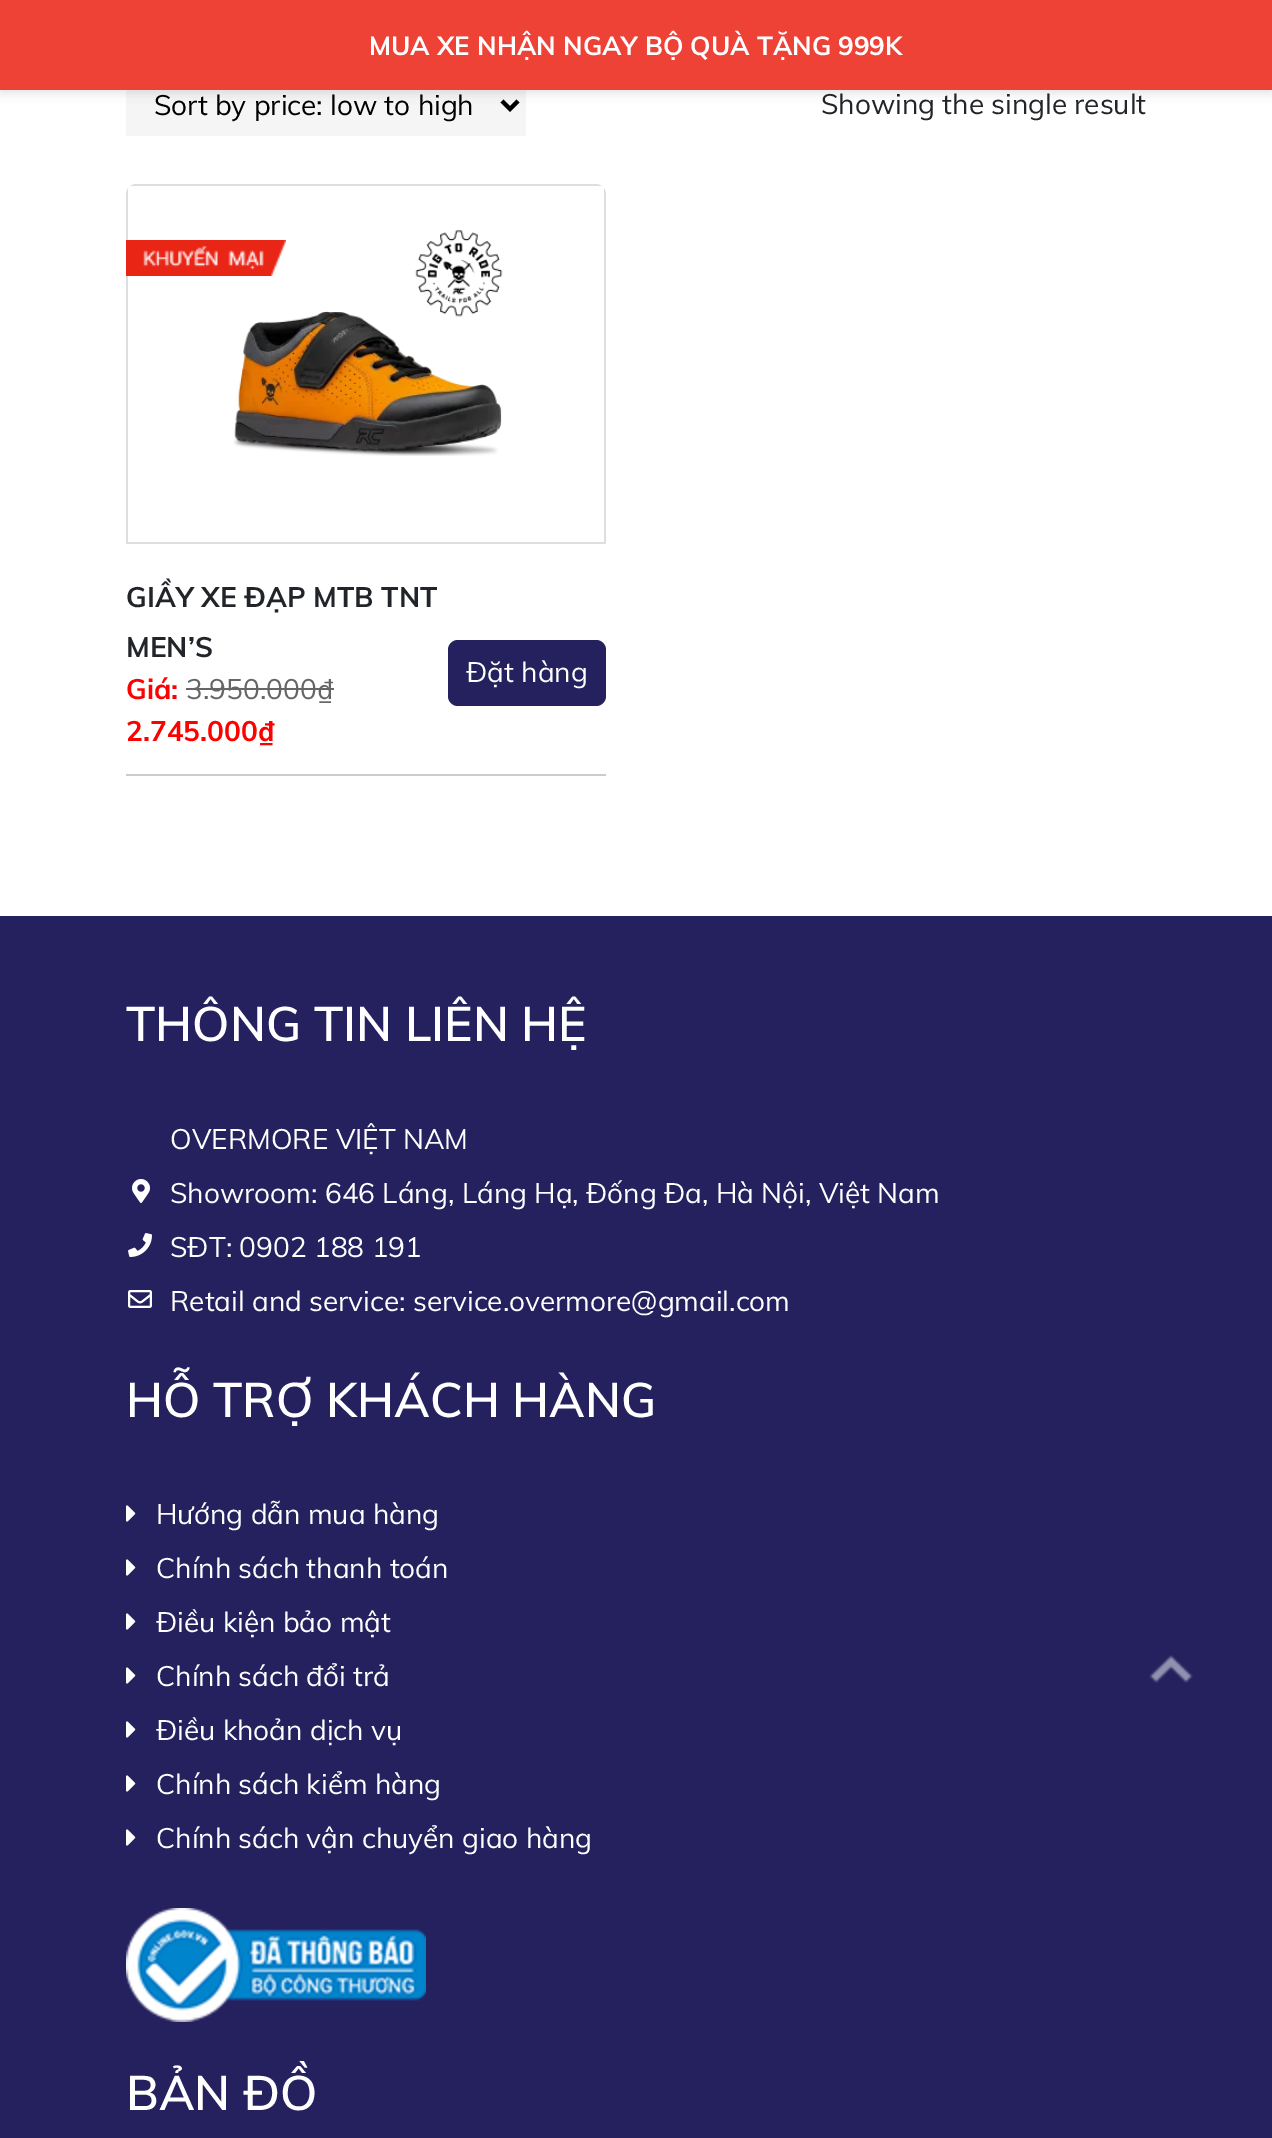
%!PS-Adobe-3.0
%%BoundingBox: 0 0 1272 2138
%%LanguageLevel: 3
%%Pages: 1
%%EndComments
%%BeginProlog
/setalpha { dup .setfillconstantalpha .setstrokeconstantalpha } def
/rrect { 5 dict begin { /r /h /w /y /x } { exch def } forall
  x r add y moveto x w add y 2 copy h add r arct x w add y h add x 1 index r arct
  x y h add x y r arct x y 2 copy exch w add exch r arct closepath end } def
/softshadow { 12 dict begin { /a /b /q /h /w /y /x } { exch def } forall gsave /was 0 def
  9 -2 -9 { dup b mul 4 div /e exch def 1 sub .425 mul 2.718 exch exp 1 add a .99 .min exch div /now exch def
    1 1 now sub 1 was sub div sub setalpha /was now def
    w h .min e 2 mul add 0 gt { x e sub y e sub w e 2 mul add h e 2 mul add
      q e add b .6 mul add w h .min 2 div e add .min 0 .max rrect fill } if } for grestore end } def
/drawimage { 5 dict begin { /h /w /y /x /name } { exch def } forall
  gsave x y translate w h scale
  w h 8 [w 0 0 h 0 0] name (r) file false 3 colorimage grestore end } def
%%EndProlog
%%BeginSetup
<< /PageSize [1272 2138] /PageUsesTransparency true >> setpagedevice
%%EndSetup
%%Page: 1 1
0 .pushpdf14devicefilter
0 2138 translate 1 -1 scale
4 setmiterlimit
1 setgray
0 0 1272 2138 rectfill
0.961 setgray
126 90 400 46 rectfill
0 setgray
4 setlinewidth
newpath 502 101 moveto 510 109 lineto 518 101 lineto stroke
0 4 1272 90 0 5 0.1 softshadow
0.937 0.259 0.216 setrgbcolor
0 0 1272 90 rectfill
0.871 setgray
newpath 126 194 moveto 126 544 lineto 606 544 lineto 606 194 lineto 606 192 605 190 604 188 curveto 604 542 lineto 128 542 lineto 128 188 lineto 127 190 126 192 126 194 curveto closepath 136 184 moveto 134 184 132 185 130 186 curveto 602 186 lineto 600 185 598 184 596 184 curveto closepath eofill
(images/1.raw) 233 230 270 226 drawimage
(images/2.raw) 126 240 160 36 drawimage
0.4 setgray
186 688 148 2 rectfill
0.145 0.129 0.373 setrgbcolor
448 640 158 66 10 rrect fill
0.8 setgray
126 774 480 2 rectfill
0.145 0.129 0.373 setrgbcolor
0 916 1272 1222 rectfill
(images/3.raw) 132 1179 18 24 drawimage
(images/4.raw) 128 1233 24 24 drawimage
(images/5.raw) 128 1290 24 18 drawimage
(images/6.raw) 126 1505 10 17 drawimage
(images/6.raw) 126 1559 10 17 drawimage
(images/6.raw) 126 1613 10 17 drawimage
(images/6.raw) 126 1667 10 17 drawimage
(images/6.raw) 126 1721 10 17 drawimage
(images/6.raw) 126 1775 10 17 drawimage
(images/6.raw) 126 1829 10 17 drawimage
(images/7.raw) 126 1908 300 114 drawimage
(images/8.raw) 1149 1655 44 28 drawimage
/Muli-Bold [26 0 0 -26 0 0] selectfont
1 setgray
369 55 moveto (MUA XE NHẬN NGAY BỘ QUÀ TẶNG 999K) show
/Muli-Regular [28 0 0 -28 0 0] selectfont
0 setgray
154 115 moveto (Sort by price: low to high) show
0.129 0.145 0.161 setrgbcolor
821 114 moveto (Showing the single result) show
/Muli-Bold [28 0 0 -28 0 0] selectfont
126 607 moveto (GIẦY XE ĐẠP MTB TNT) show
126 657 moveto (MEN’S) show
1 0 0 setrgbcolor
126 699 moveto (Giá:) show
/Muli-Regular [28 0 0 -28 0 0] selectfont
0.4 setgray
186 699 moveto (3.950.000₫) show
/Muli-Bold [28 0 0 -28 0 0] selectfont
1 0 0 setrgbcolor
126 741 moveto (2.745.000₫) show
/Muli-Regular [28 0 0 -28 0 0] selectfont
1 setgray
466 682 moveto (Đặt hàng) show
/Muli-SemiBold [48 0 0 -48 0 0] selectfont
126 1041 moveto (THÔNG TIN LIÊN HỆ) show
/Muli-Regular [28 0 0 -28 0 0] selectfont
170 1149 moveto (OVERMORE VIỆT NAM) show
170 1203 moveto (Showroom: 646 Láng, Láng Hạ, Đống Đa, Hà Nội, Việt Nam) show
170 1257 moveto (SĐT: 0902 188 191) show
170 1311 moveto (Retail and service: service.overmore@gmail.com) show
/Muli-SemiBold [48 0 0 -48 0 0] selectfont
126 1417 moveto (HỖ TRỢ KHÁCH HÀNG) show
/Muli-Regular [28 0 0 -28 0 0] selectfont
156 1524 moveto (Hướng dẫn mua hàng) show
156 1578 moveto (Chính sách thanh toán) show
156 1632 moveto (Điều kiện bảo mật) show
156 1686 moveto (Chính sách đổi trả) show
156 1740 moveto (Điều khoản dịch vụ) show
156 1794 moveto (Chính sách kiểm hàng) show
156 1848 moveto (Chính sách vận chuyển giao hàng) show
/Muli-SemiBold [48 0 0 -48 0 0] selectfont
126 2110 moveto (BẢN ĐỒ) show
.poppdf14devicefilter showpage
%%EOF
